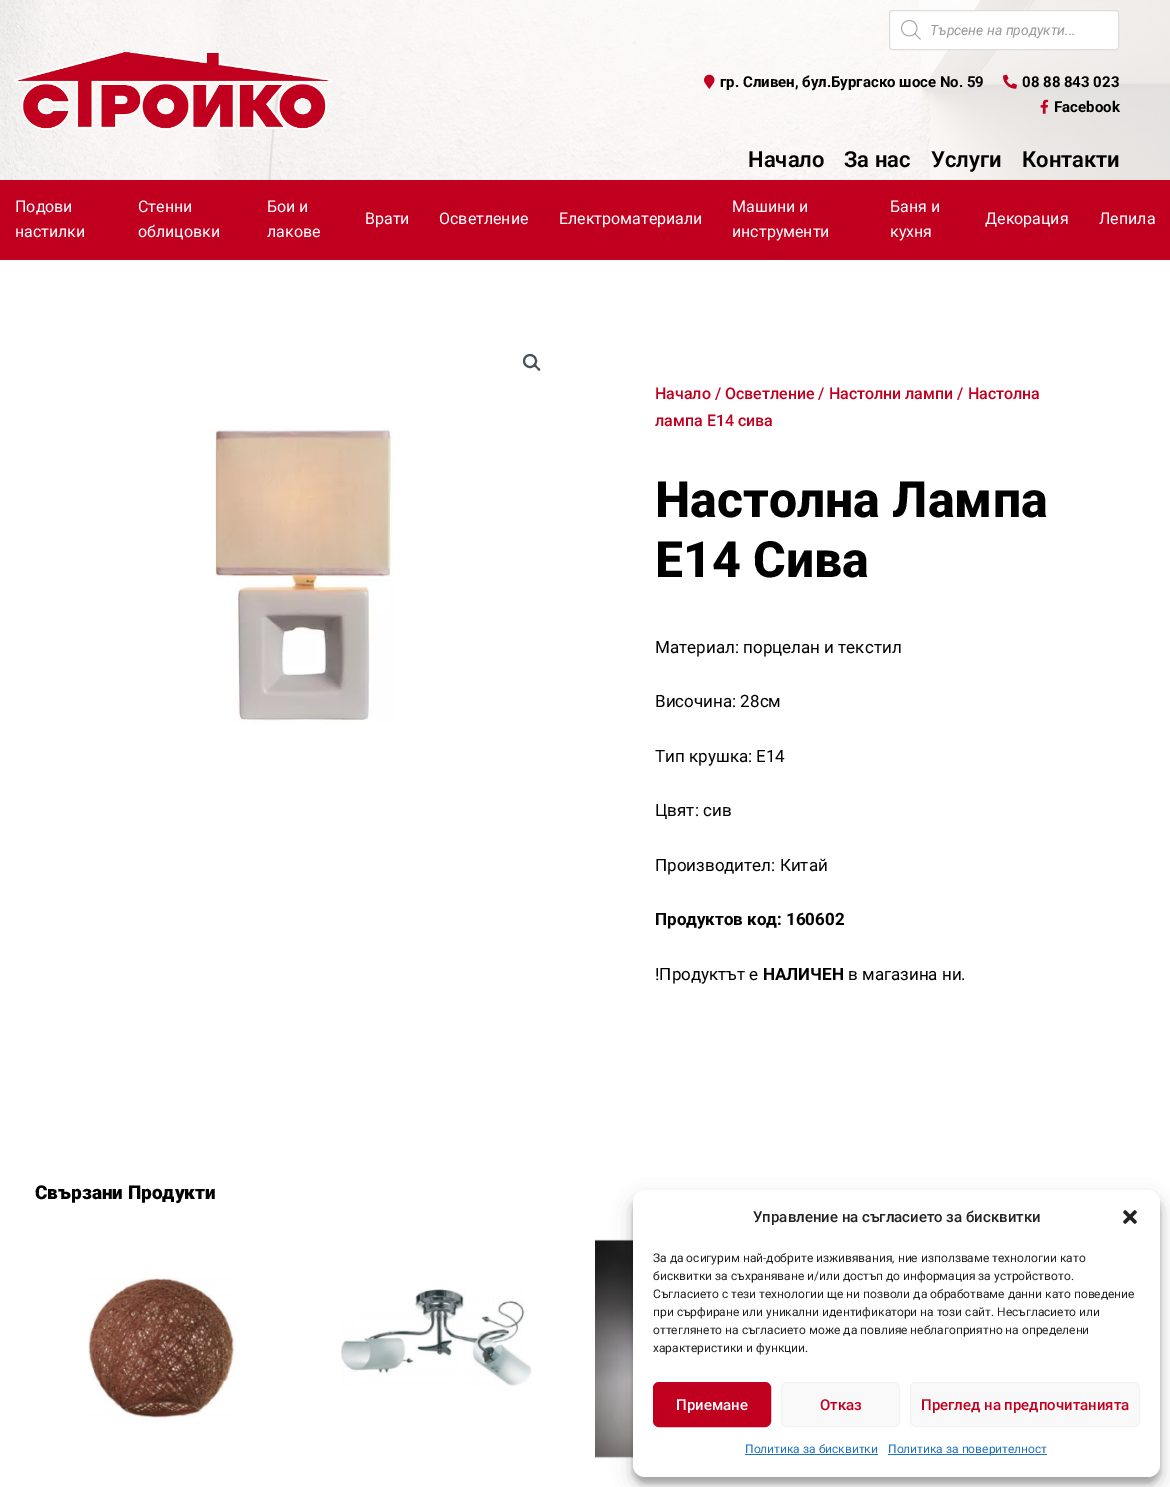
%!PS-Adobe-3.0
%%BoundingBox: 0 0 1170 1487
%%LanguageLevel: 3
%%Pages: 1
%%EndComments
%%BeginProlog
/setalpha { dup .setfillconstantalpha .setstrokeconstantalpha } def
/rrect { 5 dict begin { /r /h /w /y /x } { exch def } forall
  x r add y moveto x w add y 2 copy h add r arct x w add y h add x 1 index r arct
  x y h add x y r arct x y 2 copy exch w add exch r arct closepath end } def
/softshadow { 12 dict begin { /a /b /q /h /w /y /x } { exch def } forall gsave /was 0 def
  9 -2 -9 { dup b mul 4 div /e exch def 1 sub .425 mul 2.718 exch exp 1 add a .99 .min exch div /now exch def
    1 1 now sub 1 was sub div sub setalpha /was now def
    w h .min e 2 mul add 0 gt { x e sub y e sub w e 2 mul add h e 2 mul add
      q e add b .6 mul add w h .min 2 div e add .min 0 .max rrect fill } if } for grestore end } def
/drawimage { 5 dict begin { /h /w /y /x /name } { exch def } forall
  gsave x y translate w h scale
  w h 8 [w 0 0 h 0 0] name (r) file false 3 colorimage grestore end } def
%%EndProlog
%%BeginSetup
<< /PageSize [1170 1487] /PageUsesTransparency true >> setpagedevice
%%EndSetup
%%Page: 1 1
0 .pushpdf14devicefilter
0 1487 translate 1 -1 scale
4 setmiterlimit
1 setgray
0 0 1170 1487 rectfill
(images/1.raw) 0 0 1170 180 drawimage
0.7 setalpha
0 0 1170 180 rectfill
1 setalpha
(images/2.raw) 14 49 319 82 drawimage
889.5 10.5 229 39 2.5 rrect gsave fill grestore
0.867 setgray
stroke
(images/3.raw) 901 20 20 20 drawimage
(images/4.raw) 704 74 11 15 drawimage
(images/5.raw) 1003 74 14 15 drawimage
(images/6.raw) 1040 99 9 15 drawimage
0.757 0 0.122 setrgbcolor
0 180 1170 80 rectfill
0.294 0.31 0.345 setrgbcolor
2 setlinewidth
newpath 530 361 6 0 360 arc closepath stroke
newpath 534 364.5 moveto 535.5 363.5 537 366 537.5 367 curveto 538.5 367.5 541 369 540 370.5 curveto 538.5 371.5 537 369 536.5 368 curveto 535.5 367.5 533 366 534 364.5 curveto closepath fill
(images/7.raw) 211 428 183 297 drawimage
(images/8.raw) 88 1278 148 140 drawimage
(images/9.raw) 341 1289 191 97 drawimage
(images/10.raw) 595 1239 38 221 drawimage
0 setgray
633 1196 527 287 12 3 0.23 softshadow
633 1200 527 287 12 10 0.19 softshadow
1 setgray
633 1190 527 287 12 rrect fill
(images/11.raw) 1123 1210 14 14 drawimage
0.757 0 0.122 setrgbcolor
653.5 1382.5 117 44 5.5 rrect gsave fill grestore
1 setlinewidth
stroke
0.976 setgray
781.5 1382.5 118 44 5.5 rrect gsave fill grestore
0.949 setgray
stroke
0.976 setgray
910.5 1382.5 229 44 5.5 rrect gsave fill grestore
0.949 setgray
stroke
0.118 0.451 0.745 setrgbcolor
745 1454 133 1 rectfill
888 1454 159 1 rectfill
/Roboto-Italic [14 0 0 -14 0 0] selectfont
0.6 setgray
930 35 moveto (Търсене на продукти...) show
/Roboto-Bold [15 0 0 -15 0 0] selectfont
0 setgray
720 87 moveto (гр. Сливен, бул.Бургаско шосе No. 59) show
1022 87 moveto (08 88 843 023) show
1054 112 moveto (Facebook) show
/Roboto-SemiBold [22 0 0 -22 0 0] selectfont
748 167 moveto (Начало) show
844 167 moveto (За нас) show
931 167 moveto (Услуги) show
1022 167 moveto (Контакти) show
/Roboto-Regular [16 0 0 -16 0 0] selectfont
1 setgray
15 212 moveto (Подови) show
15 237 moveto (настилки) show
138 212 moveto (Стенни) show
138 237 moveto (облицовки) show
267 212 moveto (Бои и) show
267 237 moveto (лакове) show
365 224 moveto (Врати) show
439 224 moveto (Осветление) show
559 224 moveto (Електроматериали) show
732 212 moveto (Машини и) show
732 237 moveto (инструменти) show
890 212 moveto (Баня и) show
890 237 moveto (кухня) show
985 224 moveto (Декорация) show
1099 224 moveto (Лепила) show
/Roboto-Medium [16 0 0 -16 0 0] selectfont
0.757 0 0.122 setrgbcolor
655 399 moveto (Начало / Осветление / Настолни лампи / Настолна) show
655 426 moveto (лампа Е14 сива) show
/Roboto-ExtraBold [50 0 0 -50 0 0] selectfont
0 setgray
655 517 moveto (Настолна Лампа) show
655 577 moveto (Е14 Сива) show
/Roboto-Regular [17 0 0 -17 0 0] selectfont
655 653 moveto (Материал: порцелан и текстил) show
655 707 moveto (Височина: 28см) show
655 762 moveto (Тип крушка: Е14) show
655 816 moveto (Цвят: сив) show
655 871 moveto (Производител: Китай) show
/Roboto-Bold [17 0 0 -17 0 0] selectfont
655 925 moveto (Продуктов код: 160602) show
/Roboto-Regular [17 0 0 -17 0 0] selectfont
655 980 moveto (!Продуктът е) show
/Roboto-Bold [17 0 0 -17 0 0] selectfont
763 980 moveto (НАЛИЧЕН) show
/Roboto-Regular [17 0 0 -17 0 0] selectfont
848 980 moveto (в магазина ни.) show
/Roboto-Black [19 0 0 -19 0 0] selectfont
35 1199 moveto (Свързани Продукти) show
/Roboto-Medium [15 0 0 -15 0 0] selectfont
0.133 setgray
753 1222 moveto (Управление на съгласието за бисквитки) show
/Roboto-Regular [12 0 0 -12 0 0] selectfont
653 1262 moveto (За да осигурим най-добрите изживявания, ние използваме технологии като) show
653 1280 moveto (бисквитки за съхраняване и/или достъп до информация за устройството.) show
653 1298 moveto (Съгласието с тези технологии ще ни позволи да обработваме данни като поведение) show
653 1316 moveto (при сърфиране или уникални идентификатори на този сайт. Несъгласието или) show
653 1334 moveto (оттеглянето на съгласието може да повлияе неблагоприятно на определени) show
653 1352 moveto (характеристики и функции.) show
/Roboto-Medium [15 0 0 -15 0 0] selectfont
1 setgray
676 1410 moveto (Приемане) show
0.757 0 0.122 setrgbcolor
820 1410 moveto (Отказ) show
921 1410 moveto (Преглед на предпочитанията) show
/Roboto-Regular [12 0 0 -12 0 0] selectfont
0.118 0.451 0.745 setrgbcolor
745 1453 moveto (Политика за бисквитки) show
888 1453 moveto (Политика за поверителност) show
.poppdf14devicefilter showpage
%%EOF
